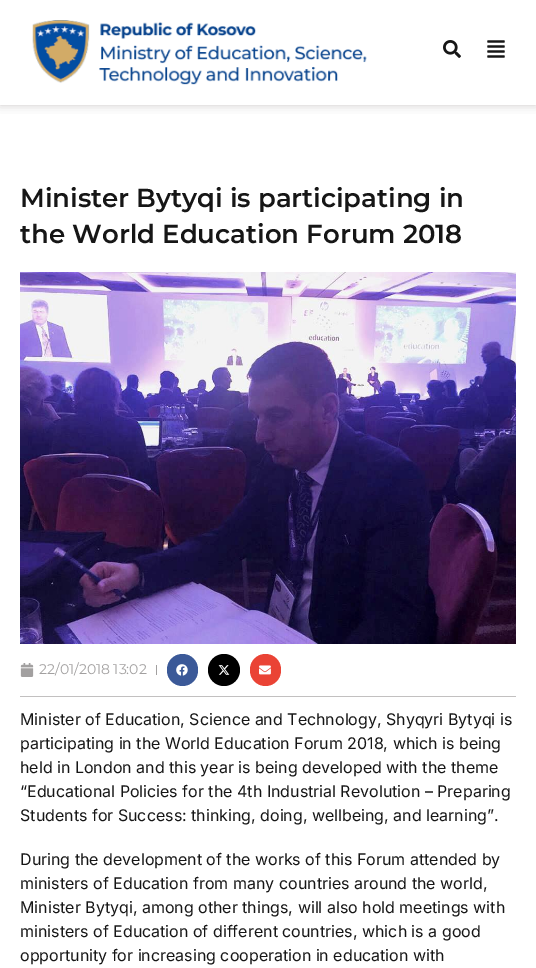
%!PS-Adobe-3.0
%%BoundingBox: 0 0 536 968
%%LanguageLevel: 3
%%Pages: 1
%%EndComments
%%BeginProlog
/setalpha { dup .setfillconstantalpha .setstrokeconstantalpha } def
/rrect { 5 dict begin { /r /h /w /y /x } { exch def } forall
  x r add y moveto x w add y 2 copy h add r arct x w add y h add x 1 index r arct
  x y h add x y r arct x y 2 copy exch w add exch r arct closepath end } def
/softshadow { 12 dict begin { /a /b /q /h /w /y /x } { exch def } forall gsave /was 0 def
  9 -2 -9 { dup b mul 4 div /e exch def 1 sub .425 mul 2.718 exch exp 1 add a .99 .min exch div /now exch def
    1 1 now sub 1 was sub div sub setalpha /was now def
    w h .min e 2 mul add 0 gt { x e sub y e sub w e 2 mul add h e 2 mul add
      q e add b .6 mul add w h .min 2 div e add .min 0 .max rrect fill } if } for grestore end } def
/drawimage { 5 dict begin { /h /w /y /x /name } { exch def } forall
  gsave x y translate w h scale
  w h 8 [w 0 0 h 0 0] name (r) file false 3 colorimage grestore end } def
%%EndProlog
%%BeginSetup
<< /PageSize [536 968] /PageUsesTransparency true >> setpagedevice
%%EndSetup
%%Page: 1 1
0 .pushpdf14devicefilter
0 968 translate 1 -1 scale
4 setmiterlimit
1 setgray
0 0 536 968 rectfill
gsave
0 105 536 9 rectclip
0.604 0.584 0.584 setrgbcolor
0 0 536 105 0 5 0.5 softshadow
grestore
(images/1.raw) 32 20 335 65 drawimage
(images/2.raw) 443 40 18 18 drawimage
(images/3.raw) 487 40 18 18 drawimage
(images/4.raw) 20 272 496 372 drawimage
(images/5.raw) 20 663 14 14 drawimage
0.635 0.627 0.627 setrgbcolor
156 665 1 10 rectfill
0.231 0.349 0.596 setrgbcolor
167 654 31 32 15.5 rrect fill
(images/6.raw) 176 664 12 12 drawimage
0 setgray
newpath 224 670 16 0 360 arc closepath fill
(images/7.raw) 218 665 12 10 drawimage
0.918 0.263 0.208 setrgbcolor
250 654 31 32 15.5 rrect fill
(images/8.raw) 259 665 12 10 drawimage
0.761 0.753 0.753 setrgbcolor
20 696 496 1 rectfill
/Montserrat-SemiBold [26 0 0 -26 0 0] selectfont
0.086 setgray
20 207 moveto (Minister Bytyqi is participating in) show
20 243 moveto (the World Education Forum 2018) show
/Montserrat-Regular [14 0 0 -14 0 0] selectfont
0.635 0.627 0.627 setrgbcolor
39 674 moveto (22/01/2018 13:02) show
/Inter-Regular [16 0 0 -16 0 0] selectfont
0.086 setgray
20 725 moveto (Minister of Education, Science and Technology, Shyqyri Bytyqi is) show
20 749 moveto (participating in the World Education Forum 2018, which is being) show
20 773 moveto (held in London and this year is being developed with the theme) show
20 797 moveto (“Educational Policies for the 4th Industrial Revolution – Preparing) show
20 821 moveto (Students for Success: thinking, doing, wellbeing, and learning”.) show
20 865 moveto (During the development of the works of this Forum attended by) show
20 889 moveto (ministers of Education from many countries around the world,) show
20 913 moveto (Minister Bytyqi, among other things, will also hold meetings with) show
20 937 moveto (ministers of Education of different countries, which is a good) show
20 961 moveto (opportunity for increasing cooperation in education with) show
.poppdf14devicefilter showpage
%%EOF
